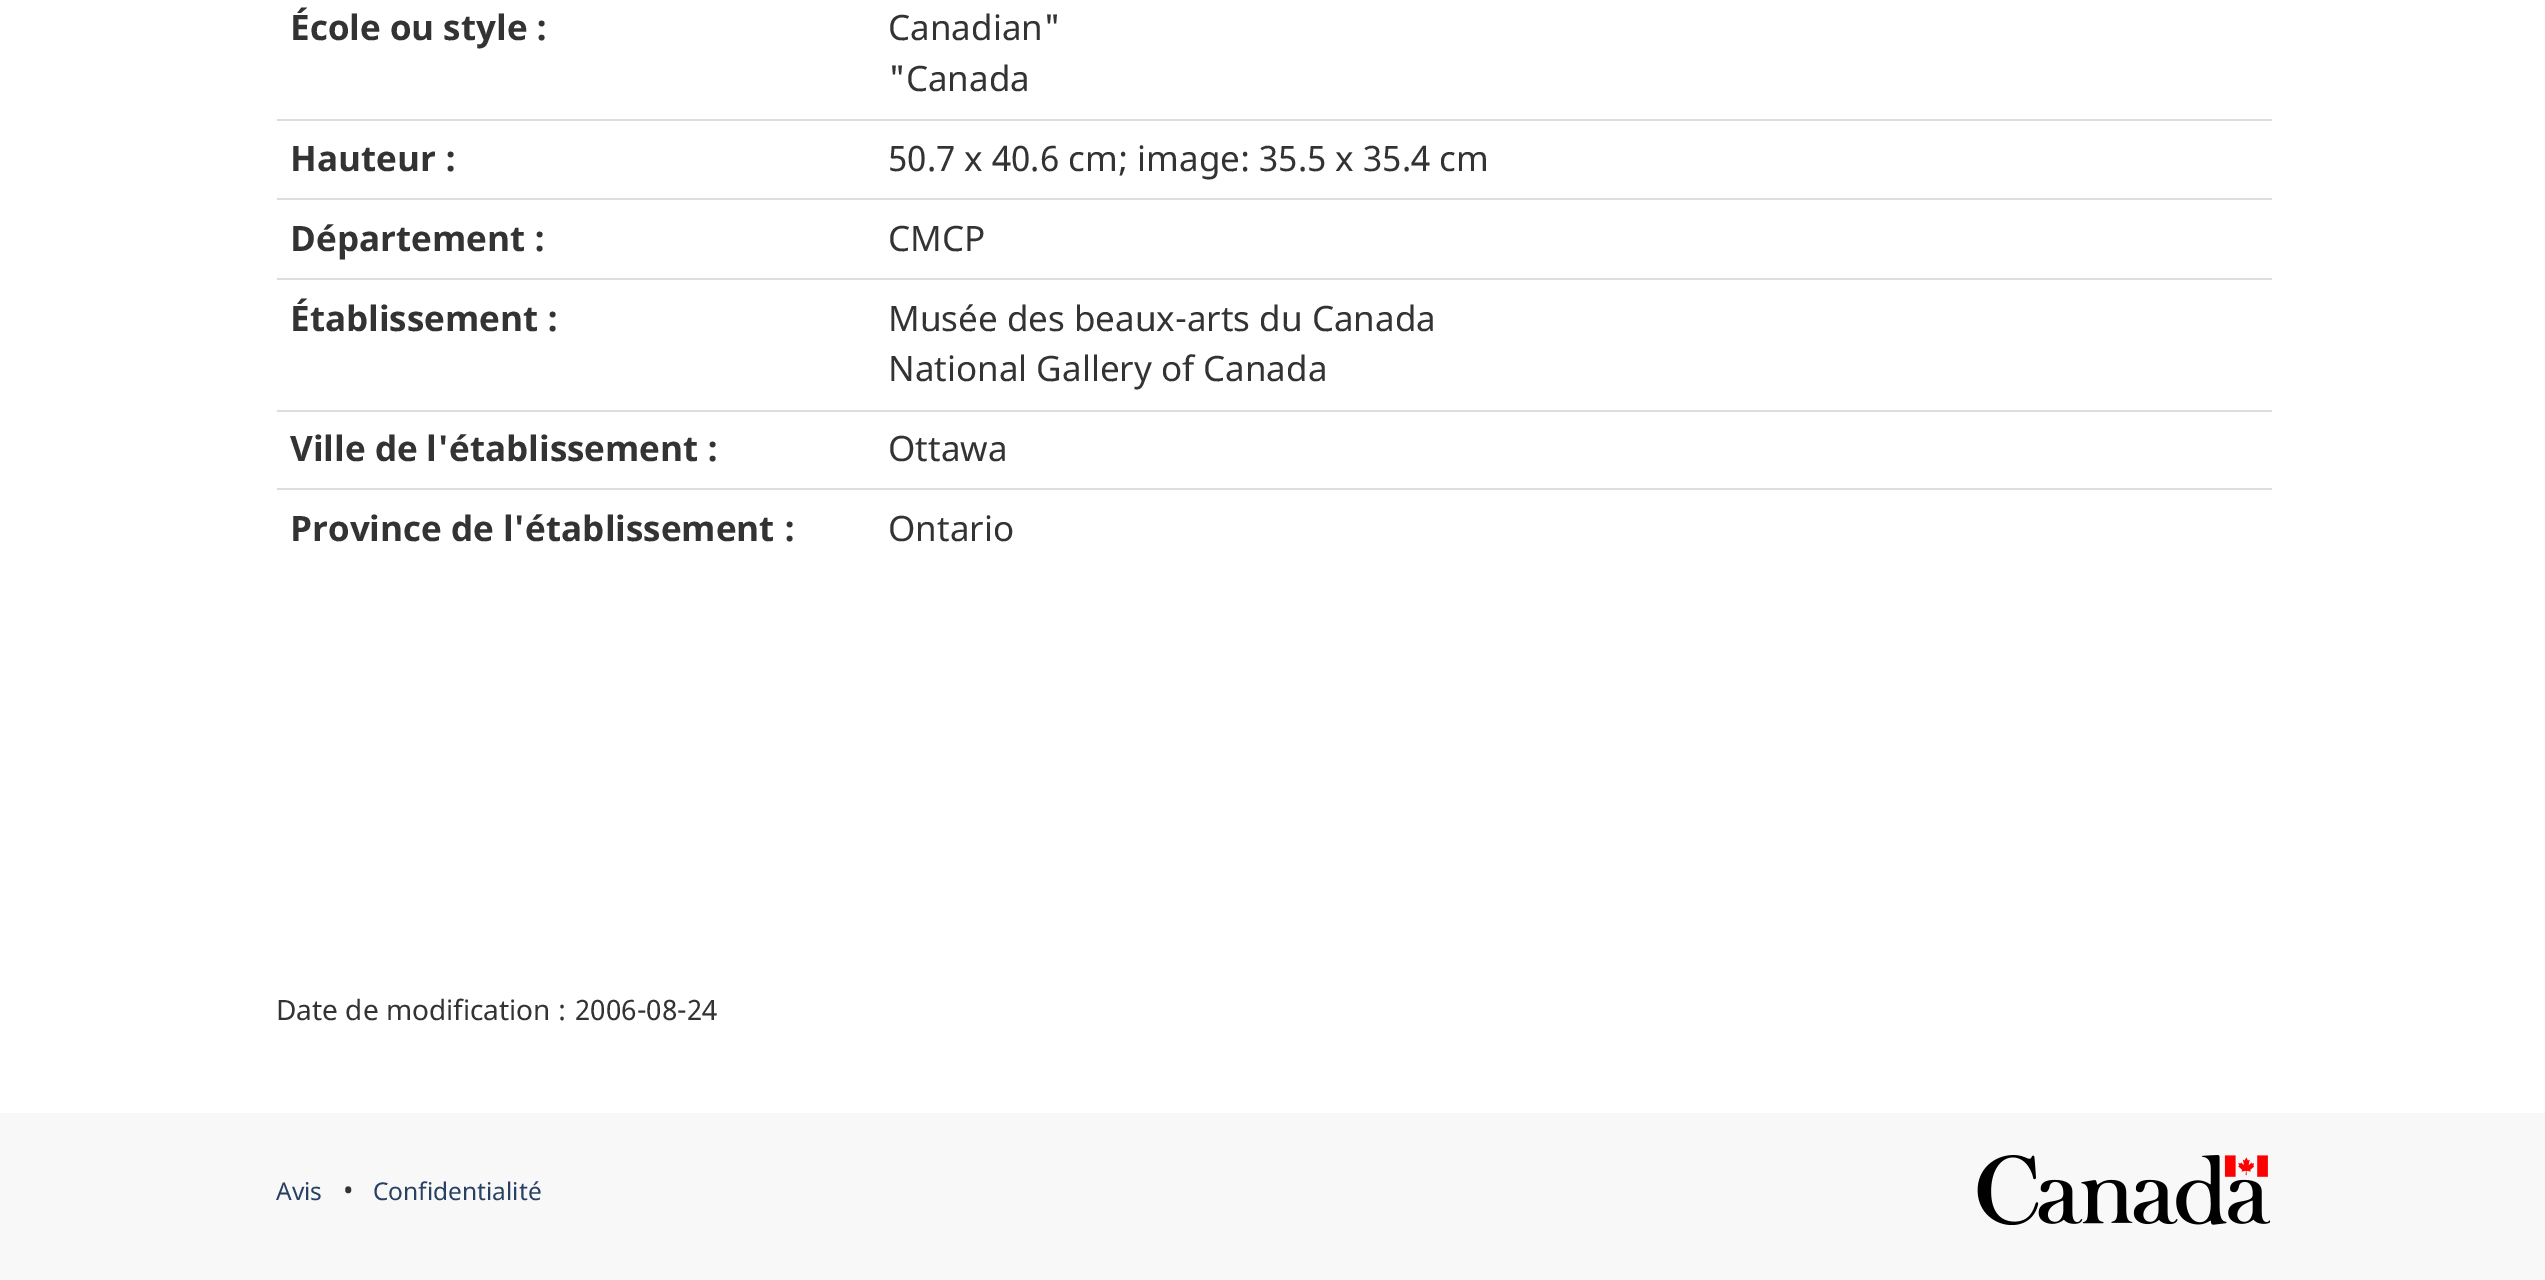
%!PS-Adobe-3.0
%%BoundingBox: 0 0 2545 1280
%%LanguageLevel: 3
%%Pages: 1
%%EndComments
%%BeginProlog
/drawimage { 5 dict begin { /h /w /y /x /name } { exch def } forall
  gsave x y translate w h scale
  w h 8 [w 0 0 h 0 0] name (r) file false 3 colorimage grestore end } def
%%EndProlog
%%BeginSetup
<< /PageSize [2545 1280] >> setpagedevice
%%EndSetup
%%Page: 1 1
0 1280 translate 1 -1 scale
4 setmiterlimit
1 setgray
0 0 2545 1280 rectfill
0.867 setgray
277 119 1995 2 rectfill
277 198 1995 2 rectfill
277 278 1995 2 rectfill
277 410 1995 2 rectfill
277 488 1995 2 rectfill
0.973 setgray
0 1113 2545 167 rectfill
(images/1.raw) 1977 1155 293 70 drawimage
/NotoSans-Bold [35 0 0 -35 0 0] selectfont
0.2 setgray
290 40 moveto (École ou style :) show
/NotoSans-Regular [35 0 0 -35 0 0] selectfont
888 40 moveto (Canadian") show
888 91 moveto ("Canada) show
/NotoSans-Bold [35 0 0 -35 0 0] selectfont
290 171 moveto (Hauteur :) show
/NotoSans-Regular [35 0 0 -35 0 0] selectfont
888 171 moveto (50.7 x 40.6 cm; image: 35.5 x 35.4 cm) show
/NotoSans-Bold [35 0 0 -35 0 0] selectfont
290 251 moveto (Département :) show
/NotoSans-Regular [35 0 0 -35 0 0] selectfont
888 251 moveto (CMCP) show
/NotoSans-Bold [35 0 0 -35 0 0] selectfont
290 331 moveto (Établissement :) show
/NotoSans-Regular [35 0 0 -35 0 0] selectfont
888 331 moveto (Musée des beaux-arts du Canada) show
888 381 moveto (National Gallery of Canada) show
/NotoSans-Bold [35 0 0 -35 0 0] selectfont
290 461 moveto (Ville de l'établissement :) show
/NotoSans-Regular [35 0 0 -35 0 0] selectfont
888 461 moveto (Ottawa) show
/NotoSans-Bold [35 0 0 -35 0 0] selectfont
290 541 moveto (Province de l'établissement :) show
/NotoSans-Regular [35 0 0 -35 0 0] selectfont
888 541 moveto (Ontario) show
/NotoSans-Regular [28 0 0 -28 0 0] selectfont
276 1020 moveto (Date de modification :) show
575 1020 moveto (2006-08-24) show
/NotoSans-Regular [24.5 0 0 -24.5 0 0] selectfont
0.157 0.255 0.384 setrgbcolor
276 1200 moveto (Avis) show
/NotoSans-Regular [28 0 0 -28 0 0] selectfont
0.2 setgray
343 1200 moveto (•) show
/NotoSans-Regular [24.5 0 0 -24.5 0 0] selectfont
0.157 0.255 0.384 setrgbcolor
373 1200 moveto (Confidentialité) show
showpage
%%EOF
